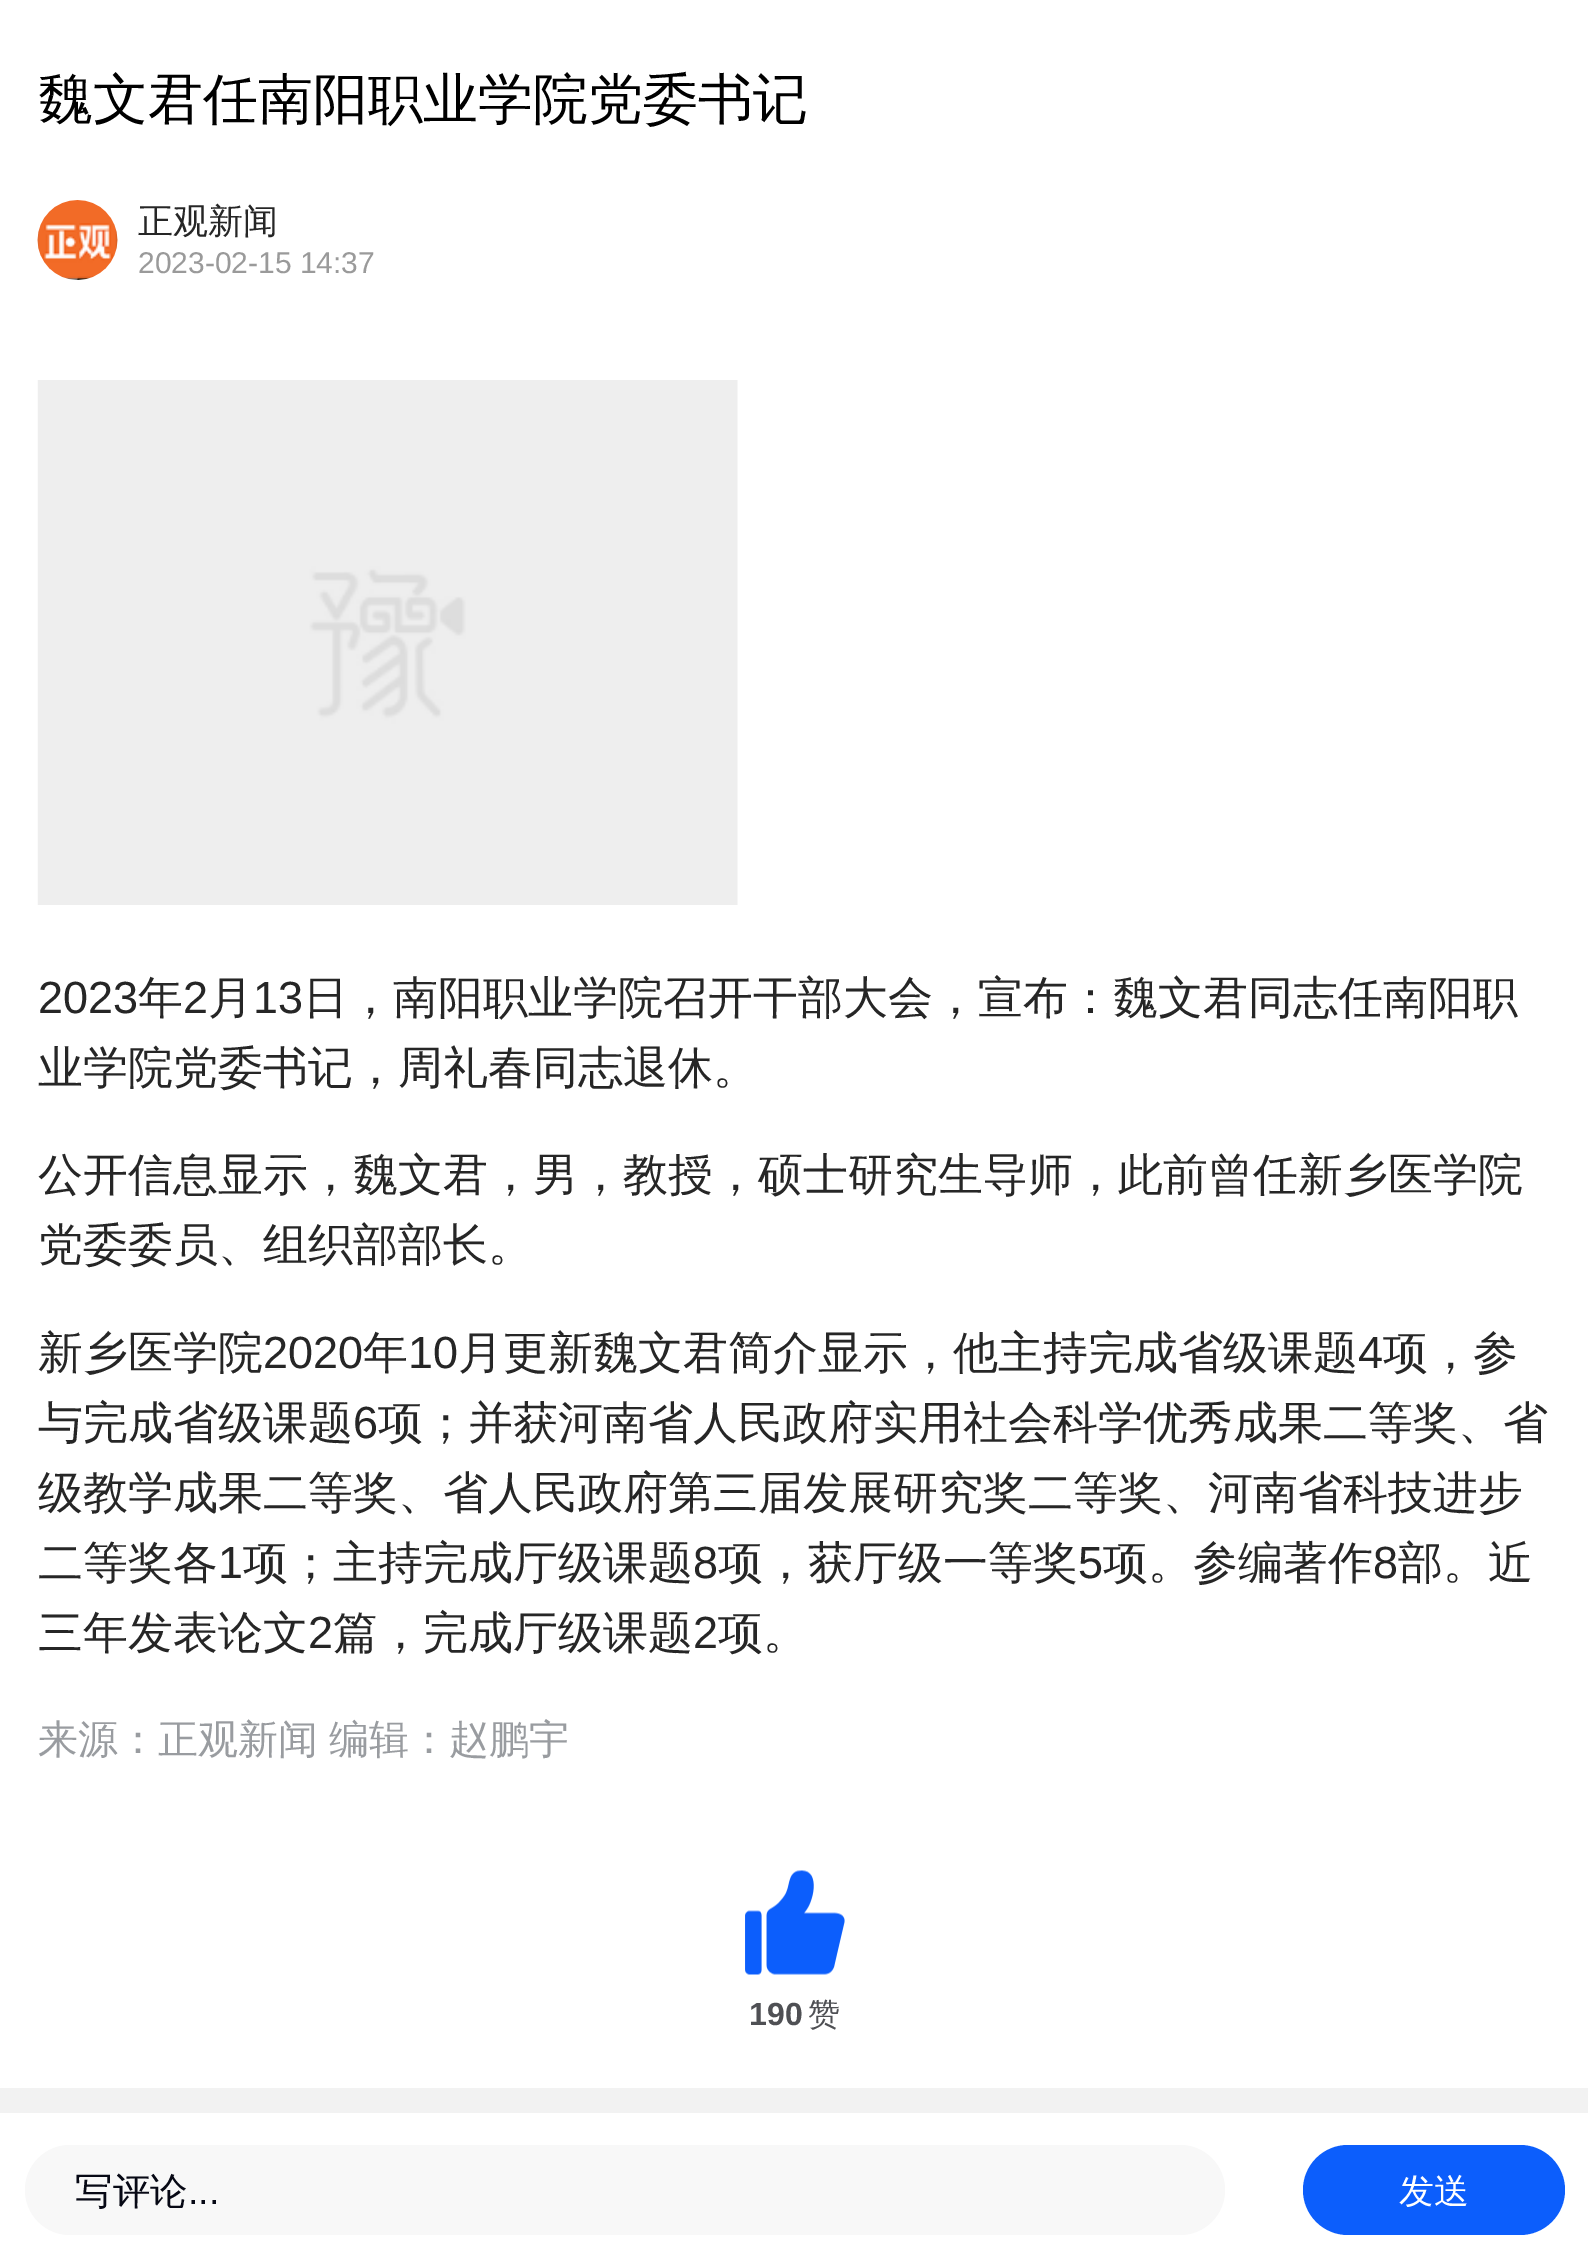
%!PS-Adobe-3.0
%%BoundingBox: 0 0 1588 2259
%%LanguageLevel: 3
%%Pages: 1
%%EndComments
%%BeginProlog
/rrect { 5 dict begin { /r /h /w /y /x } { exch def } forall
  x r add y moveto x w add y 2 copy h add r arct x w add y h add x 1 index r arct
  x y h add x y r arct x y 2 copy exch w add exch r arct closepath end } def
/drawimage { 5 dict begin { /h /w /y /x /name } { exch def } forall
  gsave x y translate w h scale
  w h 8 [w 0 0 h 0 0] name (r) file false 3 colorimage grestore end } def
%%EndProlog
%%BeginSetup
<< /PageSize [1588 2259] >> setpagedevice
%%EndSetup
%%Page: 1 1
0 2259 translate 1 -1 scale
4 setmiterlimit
1 setgray
0 0 1588 2259 rectfill
(images/1.raw) 37 200 81 80 drawimage
(images/2.raw) 37 380 701 525 drawimage
(images/3.raw) 745 1870 100 105 drawimage
0.949 setgray
0 2088 1588 25 rectfill
0.973 setgray
25 2145 1200 90 45 rrect fill
0.047 0.369 0.988 setrgbcolor
1303 2145 262 90 45 rrect fill
/WenQuanYiZenHei-Medium [55 0 0 -55 0 0] selectfont
0 setgray
38 118 moveto (魏文君任南阳职业学院党委书记) show
/WenQuanYiZenHei-Medium [35 0 0 -35 0 0] selectfont
0.149 setgray
138 233 moveto (正观新闻) show
/LiberationSans-Regular [30 0 0 -30 0 0] selectfont
0.604 setgray
138 273 moveto (2023-02-15 14:37) show
/LiberationSans-Regular [45 0 0 -45 0 0] selectfont
0.149 setgray
38 1013 moveto (2023) show
/WenQuanYiZenHei-Medium [45 0 0 -45 0 0] selectfont
138 1013 moveto (年) show
/LiberationSans-Regular [45 0 0 -45 0 0] selectfont
183 1013 moveto (2) show
/WenQuanYiZenHei-Medium [45 0 0 -45 0 0] selectfont
208 1013 moveto (月) show
/LiberationSans-Regular [45 0 0 -45 0 0] selectfont
253 1013 moveto (13) show
/WenQuanYiZenHei-Medium [45 0 0 -45 0 0] selectfont
303 1013 moveto (日，南阳职业学院召开干部大会，宣布：魏文君同志任南阳职) show
38 1083 moveto (业学院党委书记，周礼春同志退休。) show
38 1190 moveto (公开信息显示，魏文君，男，教授，硕士研究生导师，此前曾任新乡医学院) show
38 1260 moveto (党委委员、组织部部长。) show
38 1368 moveto (新乡医学院) show
/LiberationSans-Regular [45 0 0 -45 0 0] selectfont
263 1368 moveto (2020) show
/WenQuanYiZenHei-Medium [45 0 0 -45 0 0] selectfont
363 1368 moveto (年) show
/LiberationSans-Regular [45 0 0 -45 0 0] selectfont
408 1368 moveto (10) show
/WenQuanYiZenHei-Medium [45 0 0 -45 0 0] selectfont
458 1368 moveto (月更新魏文君简介显示，他主持完成省级课题) show
/LiberationSans-Regular [45 0 0 -45 0 0] selectfont
1358 1368 moveto (4) show
/WenQuanYiZenHei-Medium [45 0 0 -45 0 0] selectfont
1383 1368 moveto (项，参) show
38 1438 moveto (与完成省级课题) show
/LiberationSans-Regular [45 0 0 -45 0 0] selectfont
353 1438 moveto (6) show
/WenQuanYiZenHei-Medium [45 0 0 -45 0 0] selectfont
378 1438 moveto (项；并获河南省人民政府实用社会科学优秀成果二等奖、省) show
38 1508 moveto (级教学成果二等奖、省人民政府第三届发展研究奖二等奖、河南省科技进步) show
38 1578 moveto (二等奖各) show
/LiberationSans-Regular [45 0 0 -45 0 0] selectfont
218 1578 moveto (1) show
/WenQuanYiZenHei-Medium [45 0 0 -45 0 0] selectfont
243 1578 moveto (项；主持完成厅级课题) show
/LiberationSans-Regular [45 0 0 -45 0 0] selectfont
693 1578 moveto (8) show
/WenQuanYiZenHei-Medium [45 0 0 -45 0 0] selectfont
718 1578 moveto (项，获厅级一等奖) show
/LiberationSans-Regular [45 0 0 -45 0 0] selectfont
1078 1578 moveto (5) show
/WenQuanYiZenHei-Medium [45 0 0 -45 0 0] selectfont
1103 1578 moveto (项。参编著作) show
/LiberationSans-Regular [45 0 0 -45 0 0] selectfont
1373 1578 moveto (8) show
/WenQuanYiZenHei-Medium [45 0 0 -45 0 0] selectfont
1398 1578 moveto (部。近) show
38 1648 moveto (三年发表论文) show
/LiberationSans-Regular [45 0 0 -45 0 0] selectfont
308 1648 moveto (2) show
/WenQuanYiZenHei-Medium [45 0 0 -45 0 0] selectfont
333 1648 moveto (篇，完成厅级课题) show
/LiberationSans-Regular [45 0 0 -45 0 0] selectfont
693 1648 moveto (2) show
/WenQuanYiZenHei-Medium [45 0 0 -45 0 0] selectfont
718 1648 moveto (项。) show
/WenQuanYiZenHei-Medium [40 0 0 -40 0 0] selectfont
0.6 0.612 0.627 setrgbcolor
38 1753 moveto -1 0 32 (来源：正观新闻 编辑：赵鹏宇) widthshow
/LiberationSans-Bold [32 0 0 -32 0 0] selectfont
0.31 0.314 0.329 setrgbcolor
749 2025 moveto (190) show
/WenQuanYiZenHei-Medium [32 0 0 -32 0 0] selectfont
808 2025 moveto (赞) show
/WenQuanYiZenHei-Medium [37.5 0 0 -37.5 0 0] selectfont
0.027 0.035 0.082 setrgbcolor
75 2204 moveto (写评论) show
/LiberationSans-Regular [37.5 0 0 -37.5 0 0] selectfont
188 2204 moveto (...) show
/WenQuanYiZenHei-Medium [35 0 0 -35 0 0] selectfont
1 setgray
1399 2203 moveto (发送) show
showpage
%%EOF
